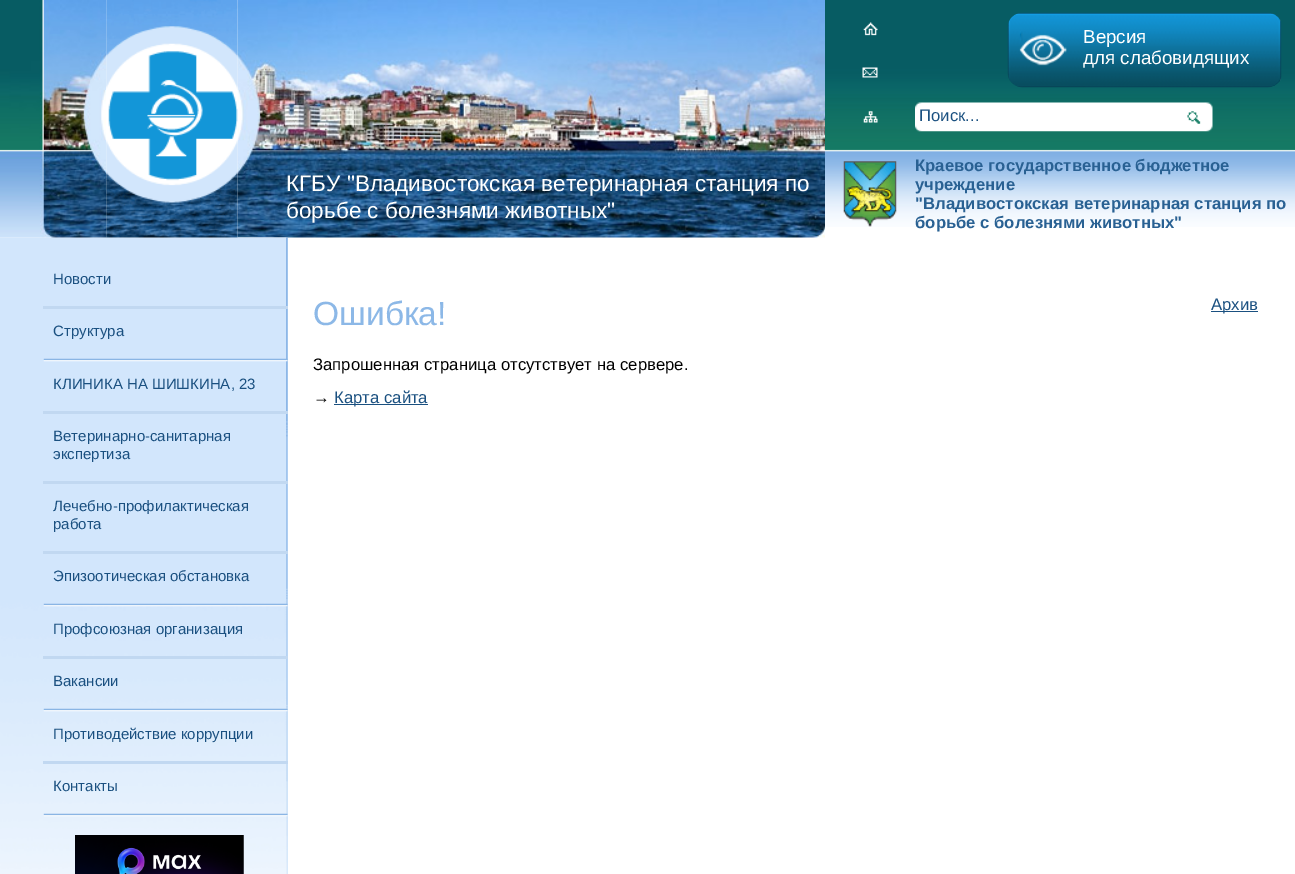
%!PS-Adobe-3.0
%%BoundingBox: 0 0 1295 874
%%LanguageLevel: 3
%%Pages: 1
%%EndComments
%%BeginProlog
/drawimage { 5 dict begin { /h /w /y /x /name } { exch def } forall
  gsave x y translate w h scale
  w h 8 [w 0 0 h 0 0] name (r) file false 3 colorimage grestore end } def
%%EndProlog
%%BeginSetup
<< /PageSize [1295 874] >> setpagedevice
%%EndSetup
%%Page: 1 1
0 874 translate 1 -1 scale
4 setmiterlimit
1 setgray
0 0 1295 874 rectfill
(images/3.raw) 237 0 588 238 drawimage
0.824 0.902 0.988 setrgbcolor
287 238 1 636 rectfill
(images/11.raw) 0 237 288 637 drawimage
(images/1.raw) 0 0 107 238 drawimage
(images/2.raw) 106 0 132 238 drawimage
(images/4.raw) 825 0 470 227 drawimage
(images/5.raw) 863 22 15 14 drawimage
(images/6.raw) 862 67 16 11 drawimage
(images/7.raw) 863 111 15 12 drawimage
(images/8.raw) 1007 12 275 76 drawimage
(images/9.raw) 915 102 298 30 drawimage
1 setgray
943 114 2 8 rectfill
(images/10.raw) 843 161 54 66 drawimage
0.757 0.847 0.945 setrgbcolor
43 306 245 3 rectfill
(images/12.raw) 43 358 245 4 drawimage
43 411 245 3 rectfill
43 481 245 3 rectfill
43 551 245 3 rectfill
(images/13.raw) 43 603 245 4 drawimage
43 656 245 3 rectfill
(images/14.raw) 43 708 245 4 drawimage
43 761 245 3 rectfill
(images/15.raw) 43 813 245 4 drawimage
(images/16.raw) 75 835 169 39 drawimage
0.102 0.314 0.502 setrgbcolor
1211 311 47 1 rectfill
334 404 94 1 rectfill
/LiberationSans-Regular [22.5 0 0 -22.5 0 0] selectfont
1 setgray
286 191 moveto (КГБУ "Владивостокская ветеринарная станция по) show
286 218 moveto (борьбе с болезнями животных") show
/LiberationSans-Regular [18.75 0 0 -18.75 0 0] selectfont
1083 43 moveto (Версия) show
1083 64 moveto (для слабовидящих) show
/LiberationSans-Regular [16.7 0 0 -16.7 0 0] selectfont
0.102 0.314 0.502 setrgbcolor
919 121 moveto (Поиск...) show
/LiberationSans-Bold [16.7 0 0 -16.7 0 0] selectfont
0.161 0.38 0.576 setrgbcolor
915 171 moveto (Краевое государственное бюджетное) show
915 190 moveto (учреждение) show
915 209 moveto ("Владивостокская ветеринарная станция по) show
915 228 moveto (борьбе с болезнями животных") show
/LiberationSans-Regular [15 0 0 -15 0 0] selectfont
0.102 0.314 0.502 setrgbcolor
53 284 moveto (Новости) show
53 336 moveto (Структура) show
53 389 moveto (КЛИНИКА НА ШИШКИНА, 23) show
53 441 moveto (Ветеринарно-санитарная) show
53 459 moveto (экспертиза) show
53 511 moveto (Лечебно-профилактическая) show
53 529 moveto (работа) show
53 581 moveto (Эпизоотическая обстановка) show
53 634 moveto (Профсоюзная организация) show
53 686 moveto (Вакансии) show
53 739 moveto (Противодействие коррупции) show
53 791 moveto (Контакты) show
/LiberationSans-Regular [33.5 0 0 -33.5 0 0] selectfont
0.549 0.722 0.906 setrgbcolor
313 325 moveto (Ошибка!) show
/LiberationSans-Regular [16.7 0 0 -16.7 0 0] selectfont
0.102 0.314 0.502 setrgbcolor
1211 310 moveto (Архив) show
0 setgray
313 370 moveto (Запрошенная страница отсутствует на сервере.) show
313 403 moveto (→) show
0.102 0.314 0.502 setrgbcolor
334 403 moveto (Карта сайта) show
showpage
%%EOF
